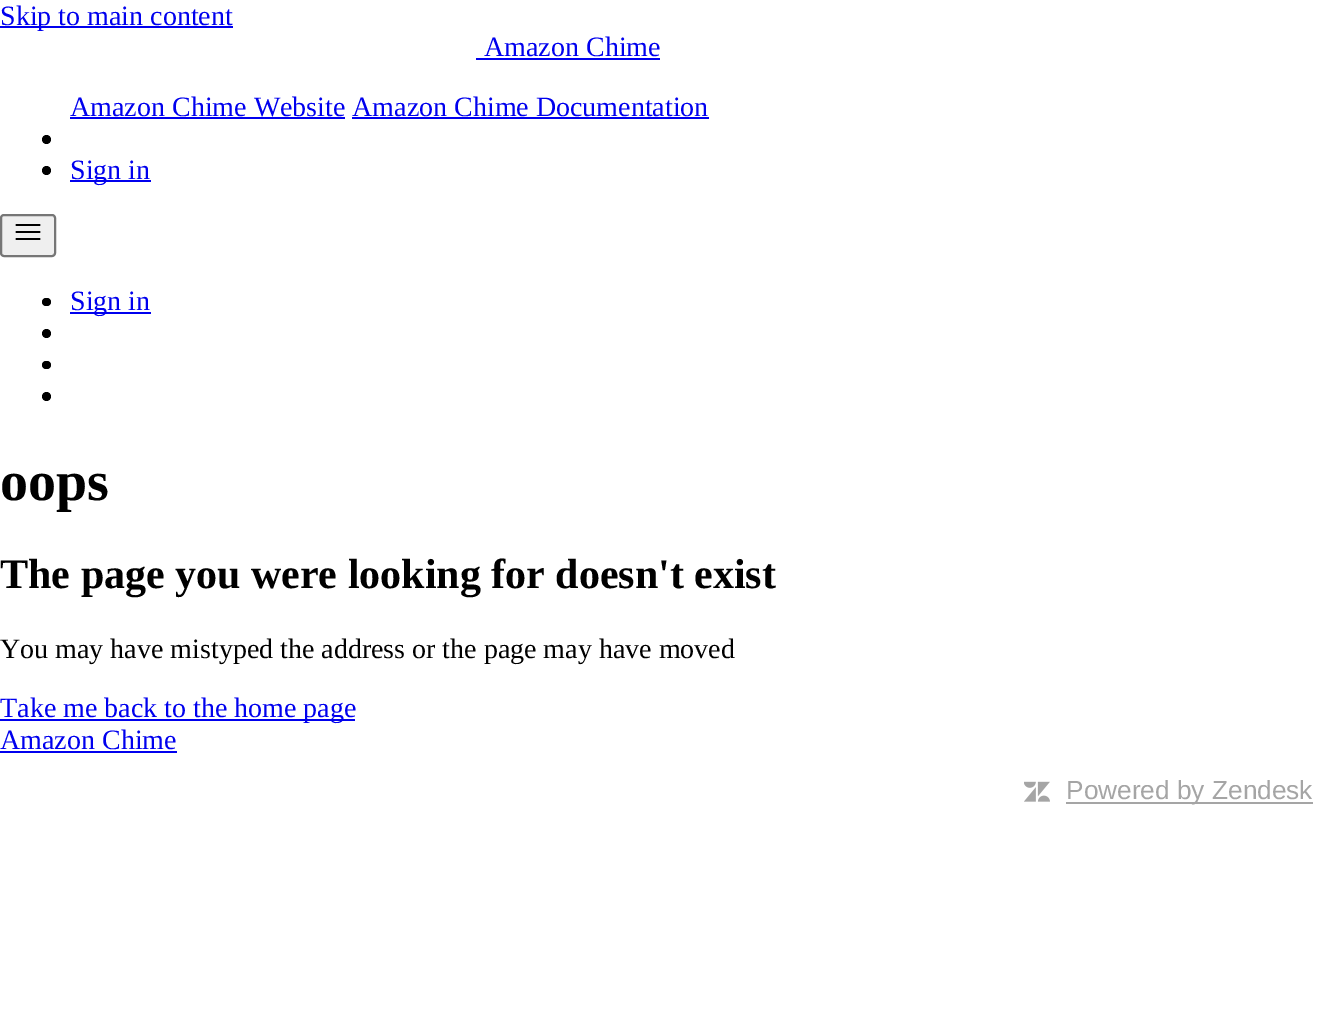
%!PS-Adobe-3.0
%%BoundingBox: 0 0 1338 1026
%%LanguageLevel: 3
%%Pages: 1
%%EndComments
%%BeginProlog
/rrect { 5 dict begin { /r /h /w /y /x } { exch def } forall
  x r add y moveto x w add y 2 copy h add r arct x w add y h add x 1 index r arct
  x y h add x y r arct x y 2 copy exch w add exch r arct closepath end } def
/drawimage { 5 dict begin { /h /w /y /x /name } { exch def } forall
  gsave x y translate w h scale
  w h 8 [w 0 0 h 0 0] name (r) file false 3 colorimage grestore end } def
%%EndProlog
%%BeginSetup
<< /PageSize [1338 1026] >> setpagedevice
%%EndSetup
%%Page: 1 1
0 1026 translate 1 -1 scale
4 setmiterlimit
1 setgray
0 0 1338 1026 rectfill
0 0 0.933 setrgbcolor
0 26 233 2 rectfill
476 58 184 2 rectfill
70 117 275 2 rectfill
352 117 357 2 rectfill
0 setgray
newpath 46.5 139.5 4.5 0 360 arc closepath fill
newpath 46.5 170.5 4.5 0 360 arc closepath fill
0 0 0.933 setrgbcolor
70 180 81 2 rectfill
0.937 setgray
1 215 54 41 3 rrect gsave fill grestore
0.463 setgray
2 setlinewidth
stroke
0 setgray
1.8 setlinewidth
1 setlinecap
newpath 16.5 225 moveto 39.5 225 lineto 16.5 232 moveto 39.5 232 lineto 16.5 239 moveto 39.5 239 lineto stroke
42 298 9 8 4 rrect fill
0 0 0.933 setrgbcolor
70 312 81 2 rectfill
0 setgray
newpath 46.5 333.5 4.5 0 360 arc closepath fill
42 361 9 8 4 rrect fill
newpath 46.5 396.5 4.5 0 360 arc closepath fill
0 0 0.933 setrgbcolor
0 719 355 2 rectfill
0 751 177 2 rectfill
(images/1.raw) 1024 781 26 21 drawimage
0.647 setgray
1066 802 247 2 rectfill
/LiberationSerif-Regular [28 0 0 -28 0 0] selectfont
0 0 0.933 setrgbcolor
0 25 moveto (Skip to main content) show
484 56 moveto (Amazon Chime) show
70 116 moveto (Amazon Chime Website Amazon Chime Documentation) show
70 179 moveto (Sign in) show
70 310 moveto (Sign in) show
/LiberationSerif-Bold [56 0 0 -56 0 0] selectfont
0 setgray
0 500 moveto (oops) show
/LiberationSerif-Bold [42 0 0 -42 0 0] selectfont
0 588 moveto (The page you were looking for doesn't exist) show
/LiberationSerif-Regular [28 0 0 -28 0 0] selectfont
0 658 moveto (You may have mistyped the address or the page may have moved) show
0 0 0.933 setrgbcolor
0 717 moveto (Take me back to the home page) show
0 749 moveto (Amazon Chime) show
/LiberationSans-Regular [26.25 0 0 -26.25 0 0] selectfont
0.647 setgray
1066 799 moveto (Powered by Zendesk) show
showpage
%%EOF
